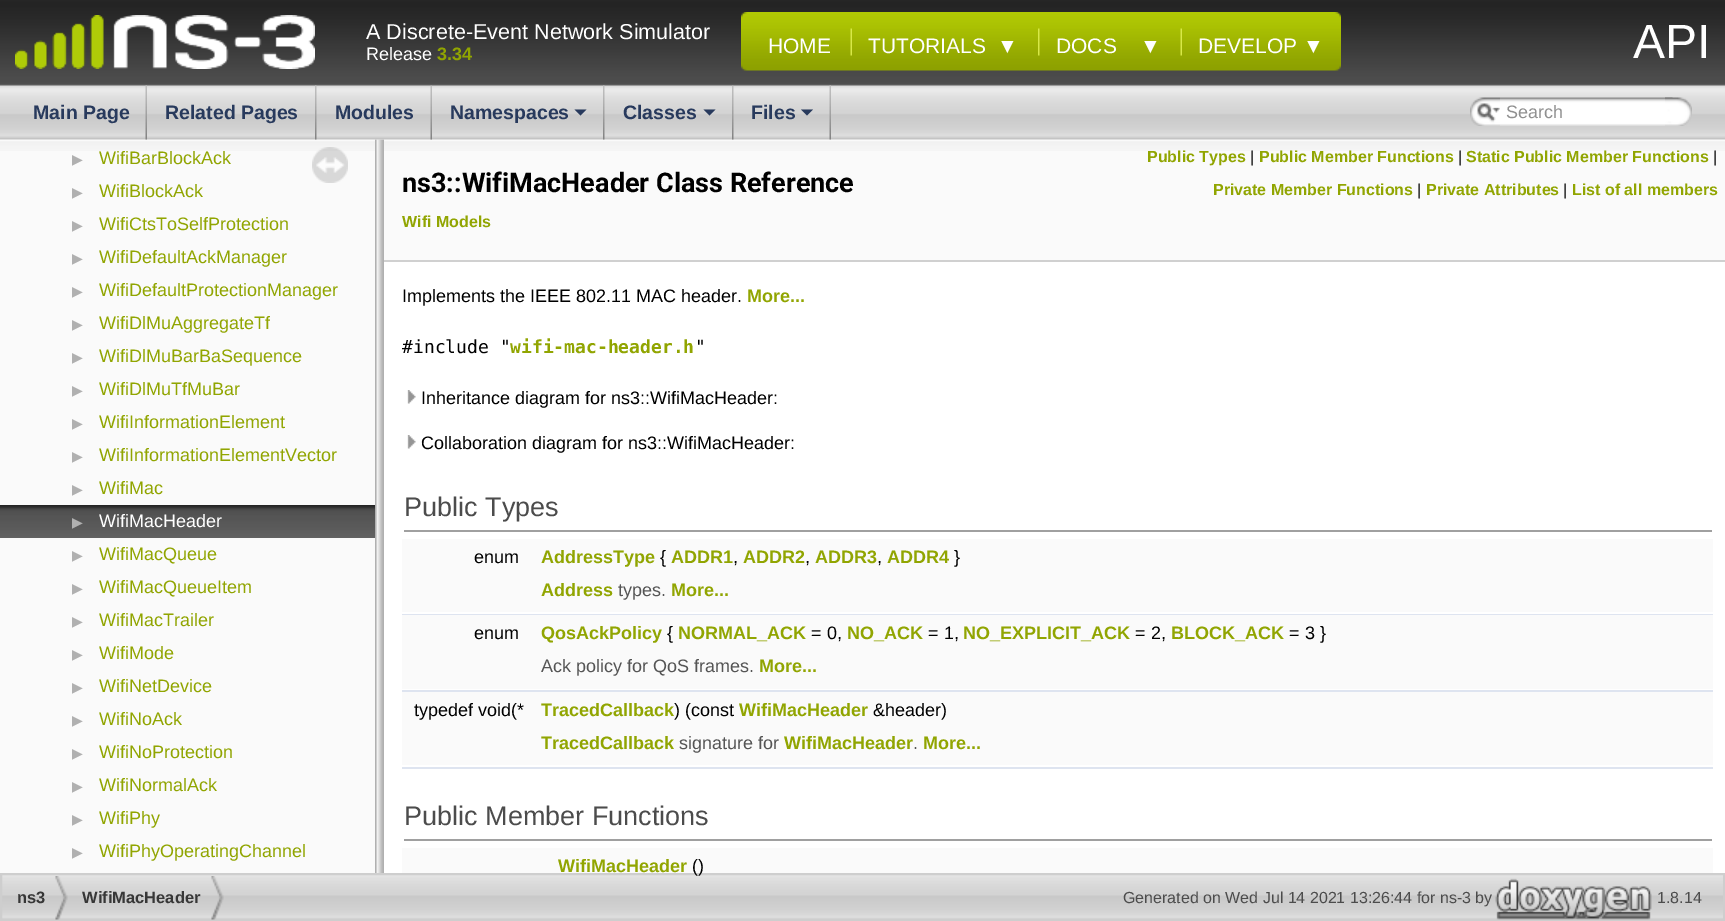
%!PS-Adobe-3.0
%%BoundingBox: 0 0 1725 921
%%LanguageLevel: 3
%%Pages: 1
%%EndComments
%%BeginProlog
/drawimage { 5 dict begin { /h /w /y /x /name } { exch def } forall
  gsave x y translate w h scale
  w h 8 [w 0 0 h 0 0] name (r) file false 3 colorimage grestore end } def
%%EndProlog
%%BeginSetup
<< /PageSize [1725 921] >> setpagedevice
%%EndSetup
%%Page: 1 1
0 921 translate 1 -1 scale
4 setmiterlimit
1 setgray
0 0 1725 921 rectfill
(images/1.raw) 0 0 1725 84 drawimage
0.357 setgray
0 84 1725 2 rectfill
(images/2.raw) 15 15 300 54 drawimage
(images/3.raw) 741 12 600 59 drawimage
(images/4.raw) 850 28 2 28 drawimage
(images/5.raw) 1038 28 2 28 drawimage
(images/4.raw) 1180 28 2 28 drawimage
(images/18.raw) 375 139 9 734 drawimage
(images/6.raw) 0 85 1725 55 drawimage
(images/7.raw) 145 85 2 55 drawimage
(images/8.raw) 315 85 2 55 drawimage
(images/9.raw) 430 85 2 55 drawimage
(images/8.raw) 603 85 2 55 drawimage
0.157 0.227 0.365 setrgbcolor
newpath 574.5 109.5 moveto 586.5 109.5 lineto 580.5 115.5 lineto closepath fill
(images/10.raw) 732 85 2 55 drawimage
newpath 703.5 109.5 moveto 715.5 109.5 lineto 709.5 115.5 lineto closepath fill
(images/7.raw) 829 85 2 55 drawimage
newpath 801 109.5 moveto 813 109.5 lineto 807 115.5 lineto closepath fill
(images/11.raw) 1470 97 30 29 drawimage
(images/12.raw) 1477 103 23 19 drawimage
(images/13.raw) 1500 97 173 29 drawimage
(images/14.raw) 1665 97 27 29 drawimage
0.98 setgray
0 140 375 733 rectfill
(images/15.raw) 0 141 375 10 drawimage
(images/16.raw) 312 147 36 36 drawimage
(images/17.raw) 0 505 375 33 drawimage
384 140 1341 120 rectfill
(images/19.raw) 384 141 1341 10 drawimage
0.816 setgray
384 260 1341 2 rectfill
(images/20.raw) 407 390 9 14 drawimage
(images/20.raw) 407 435 9 14 drawimage
0.627 setgray
404 530 1308 2 rectfill
0.98 setgray
402 539 1311 34 rectfill
402 573 1311 39 rectfill
0.871 0.894 0.941 setrgbcolor
402 614 1311 1 rectfill
0.98 setgray
402 615 1311 35 rectfill
402 650 1311 39 rectfill
0.871 0.894 0.941 setrgbcolor
402 690 1311 2 rectfill
0.98 setgray
402 692 1311 34 rectfill
402 726 1311 39 rectfill
0.871 0.894 0.941 setrgbcolor
402 767 1311 2 rectfill
0.627 setgray
404 839 1308 2 rectfill
0.98 setgray
402 848 1311 25 rectfill
(images/21.raw) 2 875 1721 44 drawimage
0.808 setgray
2 setlinewidth
1 874 1723 46 rectstroke
(images/22.raw) 55 876 13 44 drawimage
(images/22.raw) 211 876 13 44 drawimage
(images/23.raw) 1495 878 157 42 drawimage
/LiberationSans-Regular [21.6 0 0 -21.6 0 0] selectfont
1 setgray
366 39 moveto (A Discrete-Event Network Simulator) show
/LiberationSans-Regular [18 0 0 -18 0 0] selectfont
366 60 moveto (Release) show
/LiberationSans-Bold [18 0 0 -18 0 0] selectfont
0.569 0.647 0.004 setrgbcolor
437 60 moveto (3.34) show
/LiberationSans-Regular [21 0 0 -21 0 0] selectfont
1 setgray
768 53 moveto (HOME) show
868 53 moveto (TUTORIALS  ▼) show
1056 53 moveto (DOCS    ▼) show
1198 53 moveto (DEVELOP ▼) show
/LiberationSans-Regular [48 0 0 -48 0 0] selectfont
1633 58 moveto (API) show
/LiberationSans-Bold [19.5 0 0 -19.5 0 0] selectfont
0.157 0.227 0.365 setrgbcolor
33 119 moveto (Main Page) show
165 119 moveto (Related Pages) show
335 119 moveto (Modules) show
450 119 moveto (Namespaces) show
623 119 moveto (Classes) show
751 119 moveto (Files) show
/LiberationSans-Regular [18 0 0 -18 0 0] selectfont
0.565 setgray
1506 118 moveto (Search) show
/DejaVuSans-Regular [14 0 0 -14 0 0] selectfont
0.69 setgray
72 164 moveto (▶) show
/LiberationSans-Regular [18 0 0 -18 0 0] selectfont
0.569 0.647 0.004 setrgbcolor
99 164 moveto (WifiBarBlockAck) show
/DejaVuSans-Regular [14 0 0 -14 0 0] selectfont
0.69 setgray
72 197 moveto (▶) show
/LiberationSans-Regular [18 0 0 -18 0 0] selectfont
0.569 0.647 0.004 setrgbcolor
99 197 moveto (WifiBlockAck) show
/DejaVuSans-Regular [14 0 0 -14 0 0] selectfont
0.69 setgray
72 230 moveto (▶) show
/LiberationSans-Regular [18 0 0 -18 0 0] selectfont
0.569 0.647 0.004 setrgbcolor
99 230 moveto (WifiCtsToSelfProtection) show
/DejaVuSans-Regular [14 0 0 -14 0 0] selectfont
0.69 setgray
72 263 moveto (▶) show
/LiberationSans-Regular [18 0 0 -18 0 0] selectfont
0.569 0.647 0.004 setrgbcolor
99 263 moveto (WifiDefaultAckManager) show
/DejaVuSans-Regular [14 0 0 -14 0 0] selectfont
0.69 setgray
72 296 moveto (▶) show
/LiberationSans-Regular [18 0 0 -18 0 0] selectfont
0.569 0.647 0.004 setrgbcolor
99 296 moveto (WifiDefaultProtectionManager) show
/DejaVuSans-Regular [14 0 0 -14 0 0] selectfont
0.69 setgray
72 329 moveto (▶) show
/LiberationSans-Regular [18 0 0 -18 0 0] selectfont
0.569 0.647 0.004 setrgbcolor
99 329 moveto (WifiDlMuAggregateTf) show
/DejaVuSans-Regular [14 0 0 -14 0 0] selectfont
0.69 setgray
72 362 moveto (▶) show
/LiberationSans-Regular [18 0 0 -18 0 0] selectfont
0.569 0.647 0.004 setrgbcolor
99 362 moveto (WifiDlMuBarBaSequence) show
/DejaVuSans-Regular [14 0 0 -14 0 0] selectfont
0.69 setgray
72 395 moveto (▶) show
/LiberationSans-Regular [18 0 0 -18 0 0] selectfont
0.569 0.647 0.004 setrgbcolor
99 395 moveto (WifiDlMuTfMuBar) show
/DejaVuSans-Regular [14 0 0 -14 0 0] selectfont
0.69 setgray
72 428 moveto (▶) show
/LiberationSans-Regular [18 0 0 -18 0 0] selectfont
0.569 0.647 0.004 setrgbcolor
99 428 moveto (WifiInformationElement) show
/DejaVuSans-Regular [14 0 0 -14 0 0] selectfont
0.69 setgray
72 461 moveto (▶) show
/LiberationSans-Regular [18 0 0 -18 0 0] selectfont
0.569 0.647 0.004 setrgbcolor
99 461 moveto (WifiInformationElementVector) show
/DejaVuSans-Regular [14 0 0 -14 0 0] selectfont
0.69 setgray
72 494 moveto (▶) show
/LiberationSans-Regular [18 0 0 -18 0 0] selectfont
0.569 0.647 0.004 setrgbcolor
99 494 moveto (WifiMac) show
/DejaVuSans-Regular [14 0 0 -14 0 0] selectfont
0.69 setgray
72 527 moveto (▶) show
/LiberationSans-Regular [18 0 0 -18 0 0] selectfont
1 setgray
99 527 moveto (WifiMacHeader) show
/DejaVuSans-Regular [14 0 0 -14 0 0] selectfont
0.69 setgray
72 560 moveto (▶) show
/LiberationSans-Regular [18 0 0 -18 0 0] selectfont
0.569 0.647 0.004 setrgbcolor
99 560 moveto (WifiMacQueue) show
/DejaVuSans-Regular [14 0 0 -14 0 0] selectfont
0.69 setgray
72 593 moveto (▶) show
/LiberationSans-Regular [18 0 0 -18 0 0] selectfont
0.569 0.647 0.004 setrgbcolor
99 593 moveto (WifiMacQueueItem) show
/DejaVuSans-Regular [14 0 0 -14 0 0] selectfont
0.69 setgray
72 626 moveto (▶) show
/LiberationSans-Regular [18 0 0 -18 0 0] selectfont
0.569 0.647 0.004 setrgbcolor
99 626 moveto (WifiMacTrailer) show
/DejaVuSans-Regular [14 0 0 -14 0 0] selectfont
0.69 setgray
72 659 moveto (▶) show
/LiberationSans-Regular [18 0 0 -18 0 0] selectfont
0.569 0.647 0.004 setrgbcolor
99 659 moveto (WifiMode) show
/DejaVuSans-Regular [14 0 0 -14 0 0] selectfont
0.69 setgray
72 692 moveto (▶) show
/LiberationSans-Regular [18 0 0 -18 0 0] selectfont
0.569 0.647 0.004 setrgbcolor
99 692 moveto (WifiNetDevice) show
/DejaVuSans-Regular [14 0 0 -14 0 0] selectfont
0.69 setgray
72 725 moveto (▶) show
/LiberationSans-Regular [18 0 0 -18 0 0] selectfont
0.569 0.647 0.004 setrgbcolor
99 725 moveto (WifiNoAck) show
/DejaVuSans-Regular [14 0 0 -14 0 0] selectfont
0.69 setgray
72 758 moveto (▶) show
/LiberationSans-Regular [18 0 0 -18 0 0] selectfont
0.569 0.647 0.004 setrgbcolor
99 758 moveto (WifiNoProtection) show
/DejaVuSans-Regular [14 0 0 -14 0 0] selectfont
0.69 setgray
72 791 moveto (▶) show
/LiberationSans-Regular [18 0 0 -18 0 0] selectfont
0.569 0.647 0.004 setrgbcolor
99 791 moveto (WifiNormalAck) show
/DejaVuSans-Regular [14 0 0 -14 0 0] selectfont
0.69 setgray
72 824 moveto (▶) show
/LiberationSans-Regular [18 0 0 -18 0 0] selectfont
0.569 0.647 0.004 setrgbcolor
99 824 moveto (WifiPhy) show
/DejaVuSans-Regular [14 0 0 -14 0 0] selectfont
0.69 setgray
72 857 moveto (▶) show
/LiberationSans-Regular [18 0 0 -18 0 0] selectfont
0.569 0.647 0.004 setrgbcolor
99 857 moveto (WifiPhyOperatingChannel) show
/Roboto-Bold [27 0 0 -27 0 0] selectfont
0 setgray
402 192 moveto (ns3::WifiMacHeader Class Reference) show
/LiberationSans-Bold [16 0 0 -16 0 0] selectfont
0.569 0.647 0.004 setrgbcolor
402 227 moveto (Wifi Models) show
1147 162 moveto (Public Types) show
/LiberationSans-Regular [16 0 0 -16 0 0] selectfont
0 setgray
1250 162 moveto (|) show
/LiberationSans-Bold [16 0 0 -16 0 0] selectfont
0.569 0.647 0.004 setrgbcolor
1259 162 moveto (Public Member Functions) show
/LiberationSans-Regular [16 0 0 -16 0 0] selectfont
0 setgray
1458 162 moveto (|) show
/LiberationSans-Bold [16 0 0 -16 0 0] selectfont
0.569 0.647 0.004 setrgbcolor
1466 162 moveto (Static Public Member Functions) show
/LiberationSans-Regular [16 0 0 -16 0 0] selectfont
0 setgray
1713 162 moveto (|) show
/LiberationSans-Bold [16 0 0 -16 0 0] selectfont
0.569 0.647 0.004 setrgbcolor
1213 195 moveto (Private Member Functions) show
/LiberationSans-Regular [16 0 0 -16 0 0] selectfont
0 setgray
1417 195 moveto (|) show
/LiberationSans-Bold [16 0 0 -16 0 0] selectfont
0.569 0.647 0.004 setrgbcolor
1426 195 moveto (Private Attributes) show
/LiberationSans-Regular [16 0 0 -16 0 0] selectfont
0 setgray
1563 195 moveto (|) show
/LiberationSans-Bold [16 0 0 -16 0 0] selectfont
0.569 0.647 0.004 setrgbcolor
1572 195 moveto (List of all members) show
/LiberationSans-Regular [18 0 0 -18 0 0] selectfont
0 setgray
402 302 moveto (Implements the IEEE 802.11 MAC header.) show
/LiberationSans-Bold [18 0 0 -18 0 0] selectfont
0.569 0.647 0.004 setrgbcolor
747 302 moveto (More...) show
/DejaVuSansMono-Regular [18 0 0 -18 0 0] selectfont
0 setgray
402 353 moveto (#include ") show
/DejaVuSansMono-Bold [18 0 0 -18 0 0] selectfont
0.569 0.647 0.004 setrgbcolor
510 353 moveto (wifi-mac-header.h) show
/DejaVuSansMono-Regular [18 0 0 -18 0 0] selectfont
0 setgray
695 353 moveto (") show
/LiberationSans-Regular [18 0 0 -18 0 0] selectfont
421 404 moveto (Inheritance diagram for ns3::WifiMacHeader:) show
421 449 moveto (Collaboration diagram for ns3::WifiMacHeader:) show
/LiberationSans-Regular [27 0 0 -27 0 0] selectfont
0.298 setgray
404 516 moveto (Public Types) show
/LiberationSans-Regular [18 0 0 -18 0 0] selectfont
0 setgray
474 563 moveto (enum) show
/LiberationSans-Bold [18 0 0 -18 0 0] selectfont
0.569 0.647 0.004 setrgbcolor
541 563 moveto (AddressType) show
/LiberationSans-Regular [18 0 0 -18 0 0] selectfont
0 setgray
660 563 moveto ({) show
/LiberationSans-Bold [18 0 0 -18 0 0] selectfont
0.569 0.647 0.004 setrgbcolor
671 563 moveto (ADDR1) show
743 563 moveto (ADDR2) show
815 563 moveto (ADDR3) show
887 563 moveto (ADDR4) show
/LiberationSans-Regular [18 0 0 -18 0 0] selectfont
0 setgray
954 563 moveto (}) show
733 563 moveto (,) show
805 563 moveto (,) show
877 563 moveto (,) show
/LiberationSans-Bold [18 0 0 -18 0 0] selectfont
0.569 0.647 0.004 setrgbcolor
541 596 moveto (Address) show
/LiberationSans-Regular [18 0 0 -18 0 0] selectfont
0.333 setgray
618 596 moveto (types.) show
/LiberationSans-Bold [18 0 0 -18 0 0] selectfont
0.569 0.647 0.004 setrgbcolor
671 596 moveto (More...) show
/LiberationSans-Regular [18 0 0 -18 0 0] selectfont
0 setgray
474 639 moveto (enum) show
/LiberationSans-Bold [18 0 0 -18 0 0] selectfont
0.569 0.647 0.004 setrgbcolor
541 639 moveto (QosAckPolicy) show
/LiberationSans-Regular [18 0 0 -18 0 0] selectfont
0 setgray
667 639 moveto ({) show
/LiberationSans-Bold [18 0 0 -18 0 0] selectfont
0.569 0.647 0.004 setrgbcolor
678 639 moveto (NORMAL_ACK) show
/LiberationSans-Regular [18 0 0 -18 0 0] selectfont
0 setgray
811 639 moveto (= 0,) show
/LiberationSans-Bold [18 0 0 -18 0 0] selectfont
0.569 0.647 0.004 setrgbcolor
847 639 moveto (NO_ACK) show
/LiberationSans-Regular [18 0 0 -18 0 0] selectfont
0 setgray
928 639 moveto (= 1,) show
/LiberationSans-Bold [18 0 0 -18 0 0] selectfont
0.569 0.647 0.004 setrgbcolor
963 639 moveto (NO_EXPLICIT_ACK) show
/LiberationSans-Regular [18 0 0 -18 0 0] selectfont
0 setgray
1135 639 moveto (= 2,) show
/LiberationSans-Bold [18 0 0 -18 0 0] selectfont
0.569 0.647 0.004 setrgbcolor
1171 639 moveto (BLOCK_ACK) show
/LiberationSans-Regular [18 0 0 -18 0 0] selectfont
0 setgray
1289 639 moveto (= 3 }) show
0.333 setgray
541 672 moveto (Ack policy for QoS frames.) show
/LiberationSans-Bold [18 0 0 -18 0 0] selectfont
0.569 0.647 0.004 setrgbcolor
759 672 moveto (More...) show
/LiberationSans-Regular [18 0 0 -18 0 0] selectfont
0 setgray
414 716 moveto (typedef void\(*) show
/LiberationSans-Bold [18 0 0 -18 0 0] selectfont
0.569 0.647 0.004 setrgbcolor
541 716 moveto (TracedCallback) show
/LiberationSans-Regular [18 0 0 -18 0 0] selectfont
0 setgray
674 716 moveto (\) \(const) show
/LiberationSans-Bold [18 0 0 -18 0 0] selectfont
0.569 0.647 0.004 setrgbcolor
739 716 moveto (WifiMacHeader) show
/LiberationSans-Regular [18 0 0 -18 0 0] selectfont
0 setgray
873 716 moveto (&header\)) show
/LiberationSans-Bold [18 0 0 -18 0 0] selectfont
0.569 0.647 0.004 setrgbcolor
541 749 moveto (TracedCallback) show
/LiberationSans-Regular [18 0 0 -18 0 0] selectfont
0.333 setgray
679 749 moveto (signature for) show
/LiberationSans-Bold [18 0 0 -18 0 0] selectfont
0.569 0.647 0.004 setrgbcolor
784 749 moveto (WifiMacHeader) show
/LiberationSans-Regular [18 0 0 -18 0 0] selectfont
0.333 setgray
913 749 moveto (.) show
/LiberationSans-Bold [18 0 0 -18 0 0] selectfont
0.569 0.647 0.004 setrgbcolor
923 749 moveto (More...) show
/LiberationSans-Regular [27 0 0 -27 0 0] selectfont
0.298 setgray
404 825 moveto (Public Member Functions) show
/LiberationSans-Bold [18 0 0 -18 0 0] selectfont
0.569 0.647 0.004 setrgbcolor
558 872 moveto (WifiMacHeader) show
/LiberationSans-Regular [18 0 0 -18 0 0] selectfont
0 setgray
692 872 moveto (\(\)) show
/LiberationSans-Bold [16.5 0 0 -16.5 0 0] selectfont
0.216 setgray
17 903 moveto (ns3) show
82 903 moveto (WifiMacHeader) show
/LiberationSans-Regular [16 0 0 -16 0 0] selectfont
0.298 setgray
1123 903 moveto (Generated on Wed Jul 14 2021 13:26:44 for ns-3 by) show
1657 903 moveto (1.8.14) show
showpage
%%EOF
